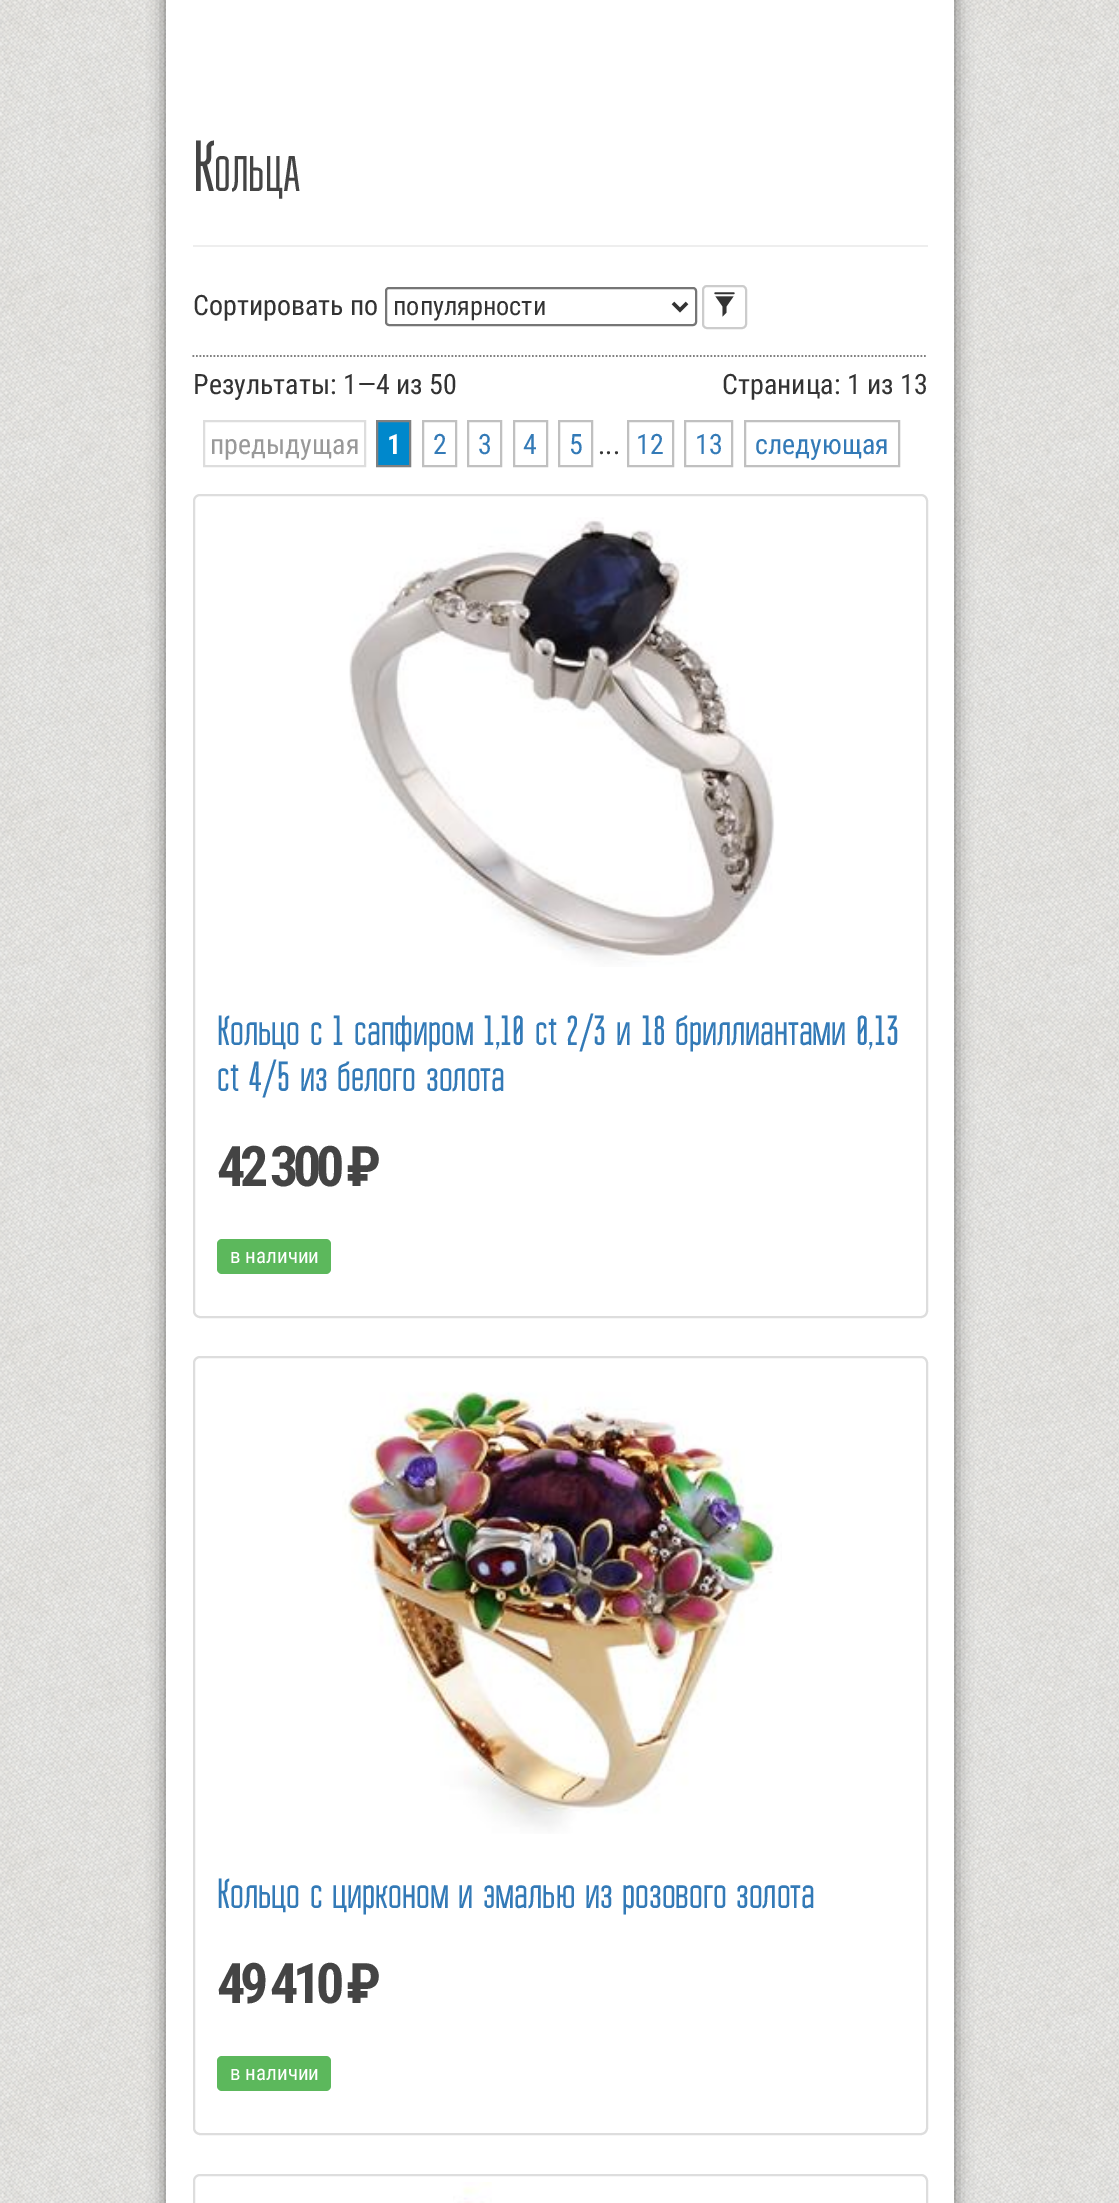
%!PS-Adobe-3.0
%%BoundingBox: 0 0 1119 2203
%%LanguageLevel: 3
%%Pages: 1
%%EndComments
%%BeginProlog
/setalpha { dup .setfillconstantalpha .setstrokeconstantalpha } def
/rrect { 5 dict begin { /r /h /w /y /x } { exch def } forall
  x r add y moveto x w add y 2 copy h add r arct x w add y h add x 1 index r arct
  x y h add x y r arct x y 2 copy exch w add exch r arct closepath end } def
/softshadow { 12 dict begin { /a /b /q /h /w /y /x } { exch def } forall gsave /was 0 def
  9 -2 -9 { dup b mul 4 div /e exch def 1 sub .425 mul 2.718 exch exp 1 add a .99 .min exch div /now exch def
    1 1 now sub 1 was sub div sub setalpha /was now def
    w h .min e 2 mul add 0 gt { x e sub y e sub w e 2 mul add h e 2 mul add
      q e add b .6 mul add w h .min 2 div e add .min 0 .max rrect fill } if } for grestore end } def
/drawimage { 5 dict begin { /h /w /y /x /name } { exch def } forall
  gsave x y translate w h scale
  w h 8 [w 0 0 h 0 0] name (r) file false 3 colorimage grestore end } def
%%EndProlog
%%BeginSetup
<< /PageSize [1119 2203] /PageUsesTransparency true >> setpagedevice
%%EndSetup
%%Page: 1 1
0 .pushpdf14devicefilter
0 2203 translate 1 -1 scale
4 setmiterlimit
1 setgray
0 0 1119 2203 rectfill
(images/1.raw) 0 0 1119 2203 drawimage
(images/2.raw) 26 39 1075 2104 drawimage
0 setgray
166 -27 788 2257 0 9 0.5 softshadow
1 setgray
166 0 788 2203 rectfill
0.933 setgray
193 245 735 2 rectfill
0.463 setgray
2 setlinewidth
386 288 310 37 3 rrect stroke
0.2 setgray
3.5 setlinewidth
newpath 673 303 moveto 680 310 lineto 687 303 lineto stroke
0.8 setgray
2 setlinewidth
703 286 43 42 4 rrect stroke
(images/3.raw) 714 292 21 25 drawimage
0.502 setgray
1.8 setlinewidth
[1.75 1.75] 0 setdash
newpath 192.5 356 moveto 927.5 356 lineto stroke
0.867 setgray
2 setlinewidth
[] 0 setdash
204 421 161 45 rectstroke
0 0.533 0.8 setrgbcolor
newpath 377 421 moveto 410 421 lineto 410 466 lineto 377 466 lineto closepath gsave fill grestore
0.502 setgray
stroke
0.753 setgray
423 421 33 45 rectstroke
468 421 33 45 rectstroke
514 421 33 45 rectstroke
559 421 33 45 rectstroke
628 421 45 45 rectstroke
685 421 47 45 rectstroke
745 421 154 45 rectstroke
0.867 setgray
194 495 733 822 6 rrect stroke
(images/4.raw) 349 517 426 450 drawimage
0.361 0.722 0.361 setrgbcolor
217 1239 114 35 5 rrect fill
0.867 setgray
194 1357 733 777 6 rrect stroke
(images/5.raw) 342 1391 440 443 drawimage
0.361 0.722 0.361 setrgbcolor
217 2056 114 35 5 rrect fill
0.867 setgray
194 2175 733 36 6 rrect stroke
(images/6.raw) 453 2182 39 21 drawimage
/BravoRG-Regular [72 0 0 -72 0 0] selectfont
0.267 setgray
193 191 moveto (К) show
/BravoRG-Regular [50 0 0 -50 0 0] selectfont
214 191 moveto (ОЛЬЦА) show
/RobotoCondensed-Regular [28 0 0 -28 0 0] selectfont
0.2 setgray
193 315 moveto (Сортировать по) show
/RobotoCondensed-Regular [26.25 0 0 -26.25 0 0] selectfont
393 315 moveto (популярности) show
/RobotoCondensed-Regular [28 0 0 -28 0 0] selectfont
193 394 moveto (Результаты: 1—4 из 50) show
722 394 moveto (Страница: 1 из 13) show
0.6 setgray
210 454 moveto (предыдущая) show
/RobotoCondensed-Bold [28 0 0 -28 0 0] selectfont
1 setgray
387 454 moveto (1) show
/RobotoCondensed-Regular [28 0 0 -28 0 0] selectfont
0.2 0.478 0.718 setrgbcolor
433 454 moveto (2) show
478 454 moveto (3) show
523 454 moveto (4) show
569 454 moveto (5) show
0.2 setgray
598 454 moveto (...) show
0.2 0.478 0.718 setrgbcolor
636 454 moveto (12) show
695 454 moveto (13) show
755 454 moveto (следующая) show
/BravoRG-Regular [42 0 0 -42 0 0] selectfont
217 1045 moveto (Кольцо) show
310 1045 moveto (с) show
332 1045 moveto (1) show
354 1045 moveto (сапфиром) show
483 1045 moveto (1,10) show
535 1045 moveto (ct) show
566 1045 moveto (2/3) show
616 1045 moveto (и) show
641 1045 moveto (18) show
675 1045 moveto (бриллиантами) show
856 1045 moveto (0,13) show
217 1091 moveto (ct) show
248 1091 moveto (4/5) show
300 1091 moveto (из) show
337 1091 moveto (белого) show
426 1091 moveto (золота) show
/RobotoCondensed-Bold [56 0 0 -56 0 0] selectfont
0.267 setgray
217 1186 moveto -5.5 0 (42 300 ₽) ashow
/RobotoCondensed-Regular [21 0 0 -21 0 0] selectfont
1 setgray
230 1263 moveto (в наличии) show
/BravoRG-Regular [42 0 0 -42 0 0] selectfont
0.2 0.478 0.718 setrgbcolor
217 1908 moveto (Кольцо) show
310 1908 moveto (с) show
332 1908 moveto (цирконом) show
458 1908 moveto (и) show
483 1908 moveto (эмалью) show
585 1908 moveto (из) show
622 1908 moveto (розового) show
736 1908 moveto (золота) show
/RobotoCondensed-Bold [56 0 0 -56 0 0] selectfont
0.267 setgray
217 2003 moveto -5.5 0 (49 410 ₽) ashow
/RobotoCondensed-Regular [21 0 0 -21 0 0] selectfont
1 setgray
230 2080 moveto (в наличии) show
.poppdf14devicefilter showpage
%%EOF
